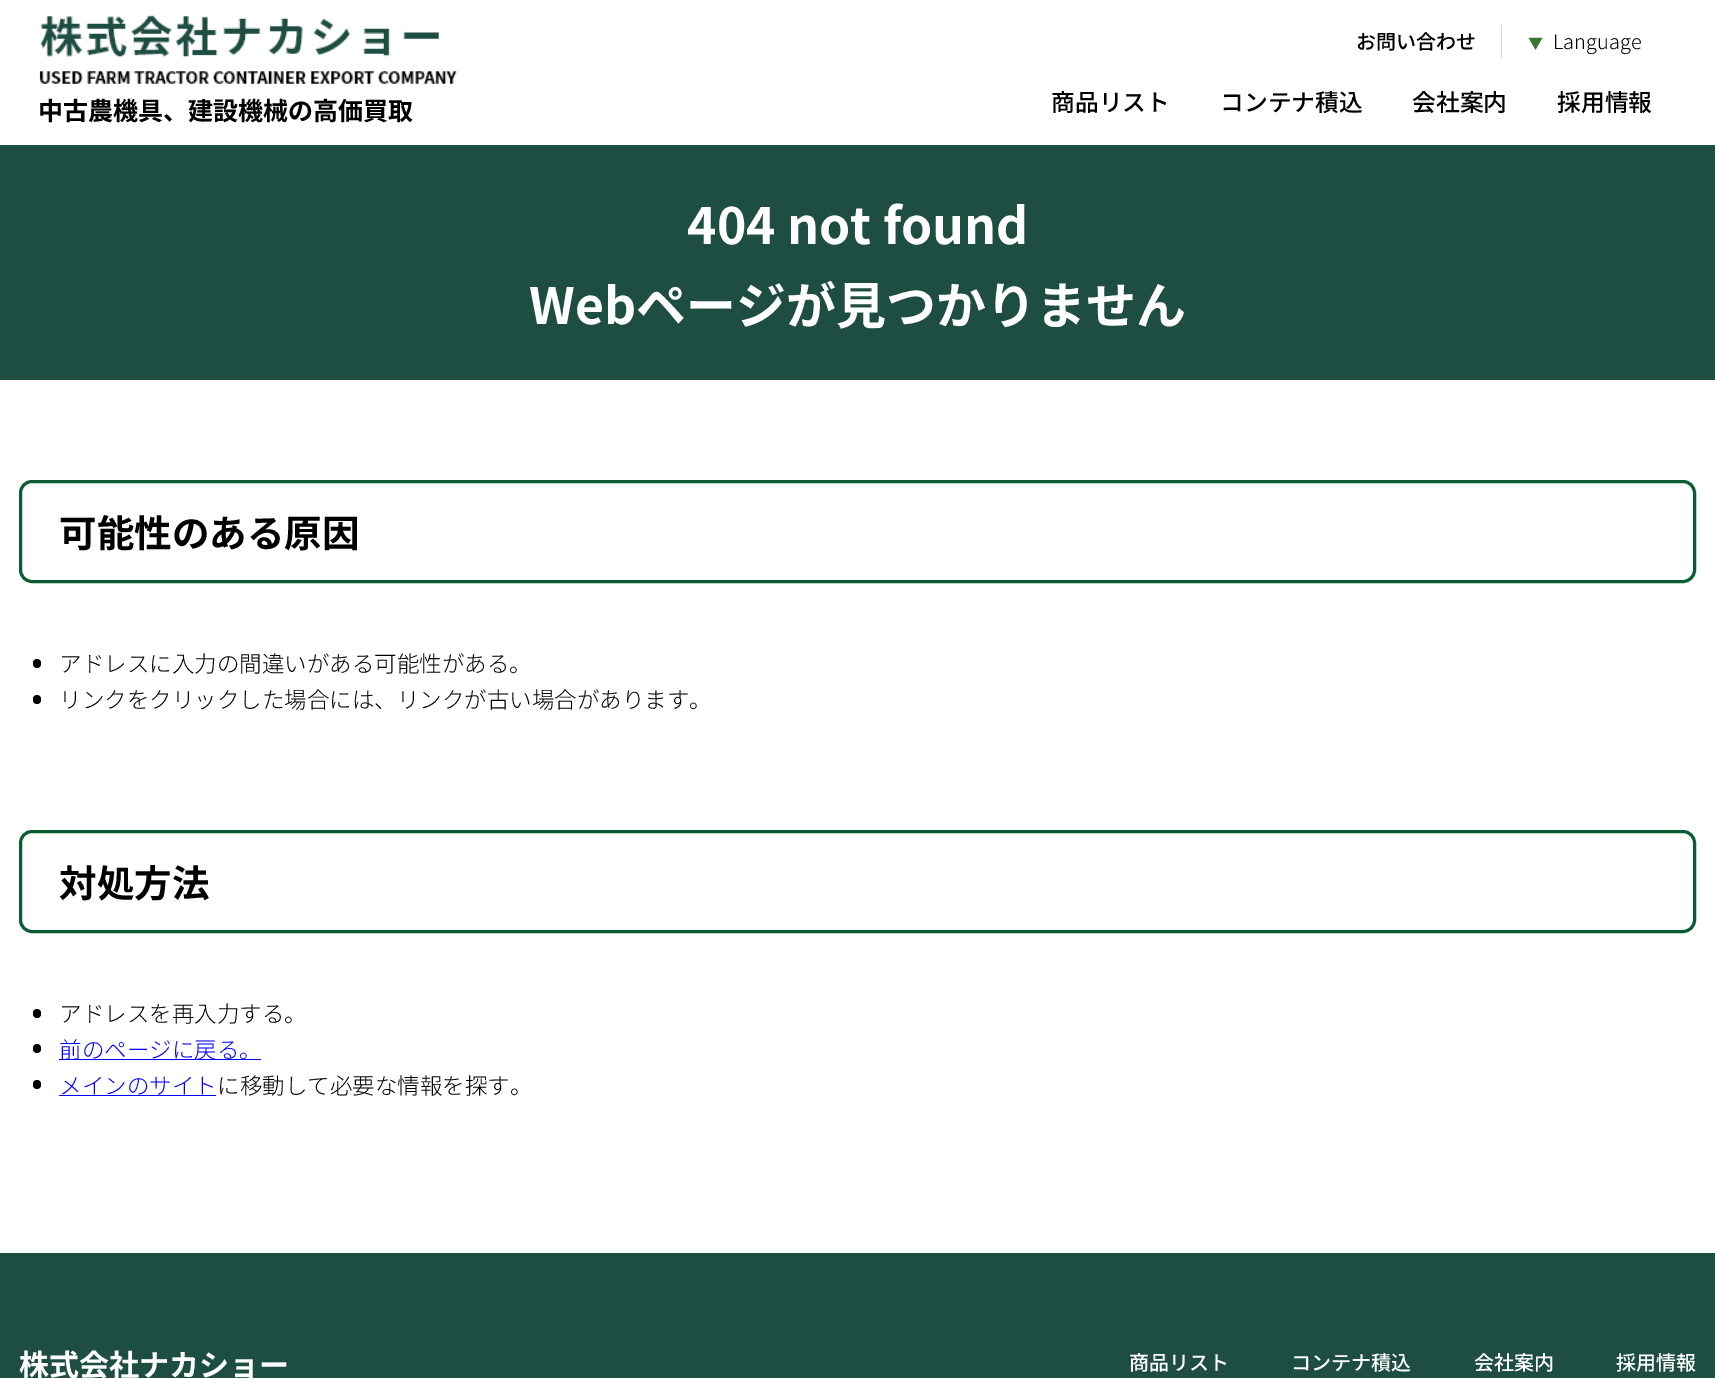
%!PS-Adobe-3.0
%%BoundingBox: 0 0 1715 1378
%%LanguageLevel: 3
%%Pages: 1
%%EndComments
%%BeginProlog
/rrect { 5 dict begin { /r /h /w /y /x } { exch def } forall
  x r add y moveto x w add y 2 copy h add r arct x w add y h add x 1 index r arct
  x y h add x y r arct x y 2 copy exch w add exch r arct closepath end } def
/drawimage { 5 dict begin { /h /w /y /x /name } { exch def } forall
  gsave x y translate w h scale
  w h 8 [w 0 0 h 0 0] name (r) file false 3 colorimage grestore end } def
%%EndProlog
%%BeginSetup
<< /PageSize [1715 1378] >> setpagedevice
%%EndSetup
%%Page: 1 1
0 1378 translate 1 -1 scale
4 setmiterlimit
1 setgray
0 0 1715 1378 rectfill
(images/1.raw) 39 15 418 69 drawimage
0.8 0.851 0.831 setrgbcolor
1501 25 1 33 rectfill
0.118 0.302 0.255 setrgbcolor
0 145 1715 235 rectfill
0.043 0.361 0.2 setrgbcolor
3 setlinewidth
20.5 481.5 1674 100 11.5 rrect stroke
0 setgray
33 659 8 9 4 rrect fill
33 695 8 9 4 rrect fill
0.043 0.361 0.2 setrgbcolor
20.5 831.5 1674 100 11.5 rrect stroke
0 setgray
33 1009 8 9 4 rrect fill
33 1044 8 9 4 rrect fill
0 0 1 setrgbcolor
59 1059 202 1 rectfill
0 setgray
33 1080 8 9 4 rrect fill
0 0 1 setrgbcolor
59 1095 157 1 rectfill
0.118 0.302 0.255 setrgbcolor
0 1253 1715 125 rectfill
/NotoSansJP-Bold [25 0 0 -25 0 0] selectfont
0 setgray
38 120 moveto (中古農機具、建設機械の高価買取) show
/NotoSansJP-Medium [20 0 0 -20 0 0] selectfont
1356 49 moveto (お問い合わせ) show
/NotoSansJP-Medium [15 0 0 -15 0 0] selectfont
0.204 0.475 0.184 setrgbcolor
1528 49 moveto (▼) show
/NotoSansJP-Light [20 0 0 -20 0 0] selectfont
0 setgray
1553 49 moveto (Language) show
/NotoSansJP-Medium [23.75 0 0 -23.75 0 0] selectfont
1051 111 moveto (商品リスト) show
1220 111 moveto (コンテナ積込) show
1412 111 moveto (会社案内) show
1557 111 moveto (採用情報) show
/NotoSansJP-Bold [50 0 0 -50 0 0] selectfont
1 setgray
687 244 moveto (404 not found) show
529 324 moveto (Webページが見つかりません) show
/NotoSansJP-Bold [37.5 0 0 -37.5 0 0] selectfont
0 setgray
59 547 moveto (可能性のある原因) show
/NotoSansJP-Light [22.5 0 0 -22.5 0 0] selectfont
59 672 moveto (アドレスに入力の間違いがある可能性がある。) show
59 708 moveto (リンクをクリックした場合には、リンクが古い場合があります。) show
/NotoSansJP-Bold [37.5 0 0 -37.5 0 0] selectfont
59 897 moveto (対処方法) show
/NotoSansJP-Light [22.5 0 0 -22.5 0 0] selectfont
59 1022 moveto (アドレスを再入力する。) show
0 0 1 setrgbcolor
59 1058 moveto (前のページに戻る。) show
59 1094 moveto (メインのサイト) show
0 setgray
217 1094 moveto (に移動して必要な情報を探す。) show
/NotoSansJP-Bold [30 0 0 -30 0 0] selectfont
1 setgray
19 1376 moveto (株式会社ナカショー) show
/NotoSansJP-Medium [20 0 0 -20 0 0] selectfont
1129 1370 moveto (商品リスト) show
1291 1370 moveto (コンテナ積込) show
1474 1370 moveto (会社案内) show
1616 1370 moveto (採用情報) show
showpage
%%EOF
